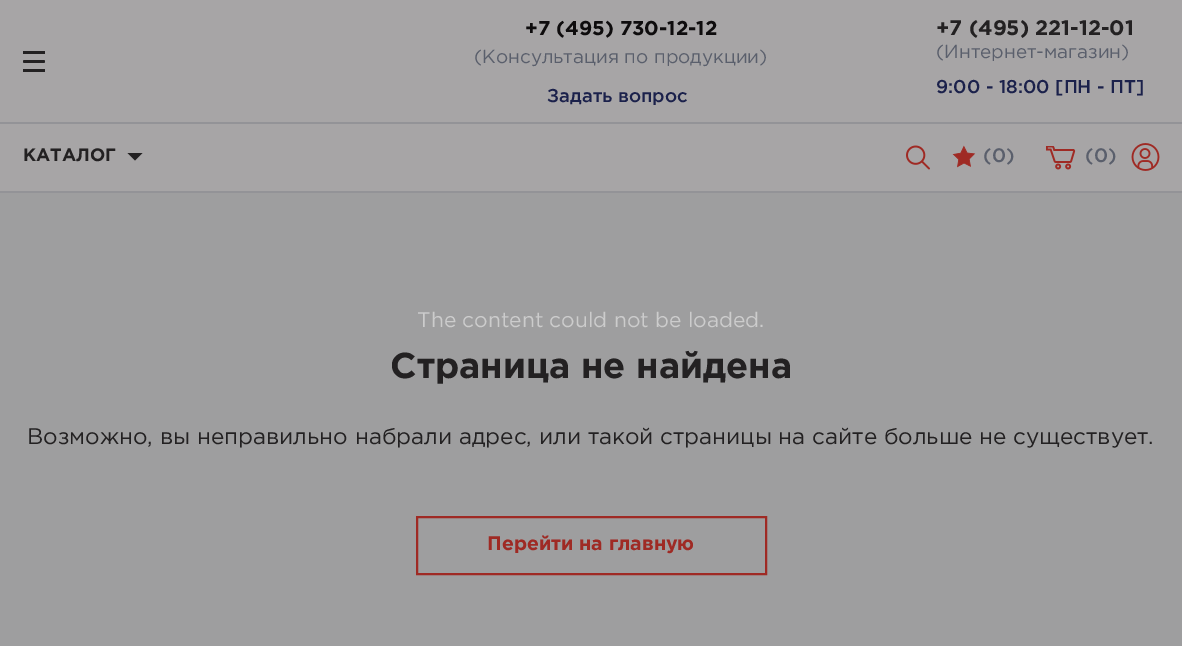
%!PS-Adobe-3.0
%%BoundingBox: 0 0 1182 646
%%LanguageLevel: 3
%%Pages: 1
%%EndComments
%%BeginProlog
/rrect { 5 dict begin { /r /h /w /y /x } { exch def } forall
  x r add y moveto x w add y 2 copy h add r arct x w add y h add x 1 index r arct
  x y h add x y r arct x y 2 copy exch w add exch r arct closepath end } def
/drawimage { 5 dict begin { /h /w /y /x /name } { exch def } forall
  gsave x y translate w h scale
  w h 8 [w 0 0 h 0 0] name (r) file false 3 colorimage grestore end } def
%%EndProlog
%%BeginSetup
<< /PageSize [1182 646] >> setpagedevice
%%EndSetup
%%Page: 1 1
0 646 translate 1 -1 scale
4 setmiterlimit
0.62 0.62 0.624 setrgbcolor
0 0 1182 646 rectfill
0.655 0.647 0.651 setrgbcolor
0 0 1182 191 rectfill
0.137 0.129 0.133 setrgbcolor
23 60 22 3 1.5 rrect fill
23 51 22 3 rectfill
23 69 22 3 rectfill
0.576 0.576 0.592 setrgbcolor
0 122 1182 2 rectfill
0 191 1182 2 rectfill
0.137 0.129 0.133 setrgbcolor
newpath 127.5 153 moveto 142.5 153 lineto 135 160.5 lineto closepath fill
(images/1.raw) 906 145 24 25 drawimage
(images/2.raw) 952 145 24 23 drawimage
(images/3.raw) 1046 146 30 24 drawimage
(images/4.raw) 1131 143 29 28 drawimage
0.624 0.165 0.141 setrgbcolor
2 setlinewidth
417 517 349 57 rectstroke
/Gotham-Bold [20 0 0 -20 0 0] selectfont
0.055 0.047 0.051 setrgbcolor
525 35 moveto (+7 \(495\) 730-12-12) show
/Gotham-Regular [18.9 0 0 -18.9 0 0] selectfont
0.353 0.373 0.424 setrgbcolor
474 63 moveto (\(Консультация по продукции\)) show
/Gotham-Medium [18.5 0 0 -18.5 0 0] selectfont
0.106 0.129 0.294 setrgbcolor
547 102 moveto (Задать вопрос) show
/Gotham-Bold [21 0 0 -21 0 0] selectfont
0.137 0.129 0.133 setrgbcolor
936 35 moveto (+7 \(495\) 221-12-01) show
/Gotham-Regular [18.9 0 0 -18.9 0 0] selectfont
0.353 0.373 0.424 setrgbcolor
936 58 moveto (\(Интернет-магазин\)) show
/Gotham-Medium [18.5 0 0 -18.5 0 0] selectfont
0.106 0.129 0.294 setrgbcolor
936 93 moveto (9:00 - 18:00 [ПН - ПТ]) show
/Gotham-Bold [18 0 0 -18 0 0] selectfont
0.137 0.129 0.133 setrgbcolor
23 161 moveto (КАТАЛОГ) show
/Gotham-Medium [19.5 0 0 -19.5 0 0] selectfont
0.353 0.373 0.424 setrgbcolor
983 162 moveto (\(0\)) show
1085 162 moveto (\(0\)) show
/Gotham-Regular [21 0 0 -21 0 0] selectfont
0.8 setgray
417 327 moveto (The content could not be loaded.) show
/Gotham-Bold [36 0 0 -36 0 0] selectfont
0.137 0.129 0.133 setrgbcolor
390 378 moveto (Страница не найдена) show
/Gotham-Regular [22.5 0 0 -22.5 0 0] selectfont
27 444 moveto (Возможно, вы неправильно набрали адрес, или такой страницы на сайте больше не существует.) show
/Gotham-Bold [19.5 0 0 -19.5 0 0] selectfont
0.624 0.165 0.141 setrgbcolor
487 550 moveto (Перейти на главную) show
showpage
%%EOF
